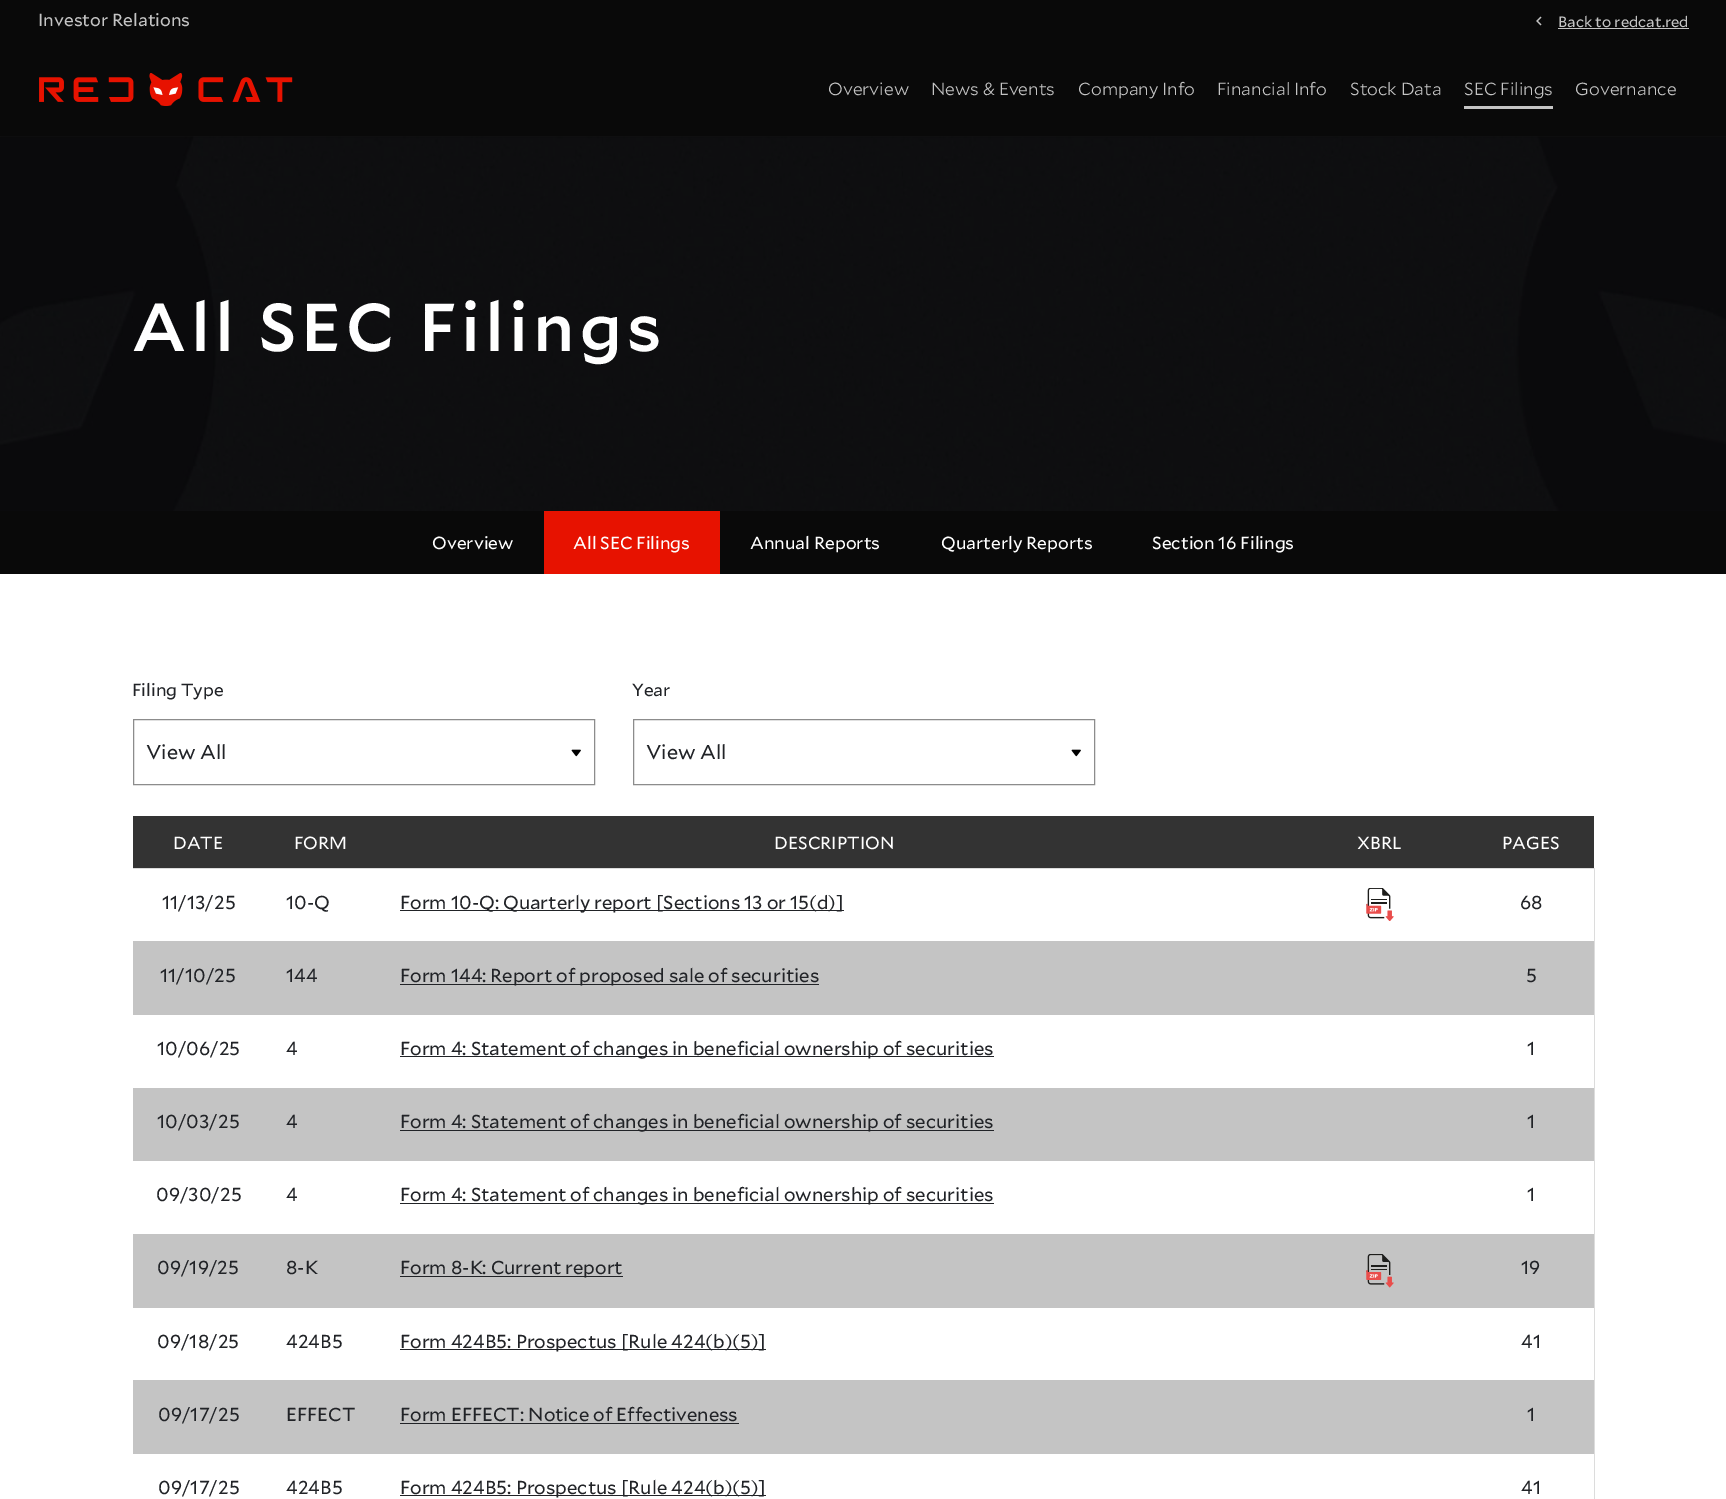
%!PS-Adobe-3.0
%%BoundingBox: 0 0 1726 1499
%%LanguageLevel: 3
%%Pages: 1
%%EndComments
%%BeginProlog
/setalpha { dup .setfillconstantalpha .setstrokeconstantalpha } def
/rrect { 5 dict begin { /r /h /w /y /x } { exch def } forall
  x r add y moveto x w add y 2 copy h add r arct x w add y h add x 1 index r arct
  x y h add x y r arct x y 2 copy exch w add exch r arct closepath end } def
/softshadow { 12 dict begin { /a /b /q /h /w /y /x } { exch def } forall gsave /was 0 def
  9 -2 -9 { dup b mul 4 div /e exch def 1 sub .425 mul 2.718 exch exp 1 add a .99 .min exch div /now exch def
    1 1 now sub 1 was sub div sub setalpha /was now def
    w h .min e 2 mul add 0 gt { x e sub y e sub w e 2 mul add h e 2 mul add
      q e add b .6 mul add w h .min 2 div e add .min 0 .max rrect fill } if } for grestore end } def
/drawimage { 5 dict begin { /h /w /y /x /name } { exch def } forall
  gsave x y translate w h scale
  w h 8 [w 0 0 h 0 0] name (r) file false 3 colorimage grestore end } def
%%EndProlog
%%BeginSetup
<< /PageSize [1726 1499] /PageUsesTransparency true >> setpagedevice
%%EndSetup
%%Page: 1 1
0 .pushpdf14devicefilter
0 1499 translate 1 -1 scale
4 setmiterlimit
1 setgray
0 0 1726 1499 rectfill
0.078 setgray
0 136 1726 1 rectfill
(images/3.raw) 0 136 1726 375 drawimage
0 setgray
0 0 1726 136 0 3 0.3 softshadow
0.035 setgray
0 0 1726 136 rectfill
(images/1.raw) 1536 16 6 10 drawimage
0.769 setgray
1558 28 131 1 rectfill
(images/2.raw) 39 73 254 33 drawimage
1464 106 89 3 rectfill
0.035 setgray
0 511 1726 63 rectfill
0.906 0.071 0 setrgbcolor
544 511 176 63 rectfill
(images/4.raw) 571 749 10 8 drawimage
0.549 setgray
133.5 719.5 461 65 rectstroke
(images/4.raw) 1071 749 10 8 drawimage
633.5 719.5 461 65 rectstroke
0.2 setgray
133 816 1461 52 rectfill
0.863 setgray
133 868 1462 1 rectfill
1594 941 1 558 rectfill
1594 868 1 75 rectfill
0.129 0.137 0.153 setrgbcolor
400 910 444 1 rectfill
(images/5.raw) 1366 888 28 33 drawimage
0.769 setgray
133 941 1461 74 rectfill
0.129 0.137 0.153 setrgbcolor
400 984 419 1 rectfill
400 1056 594 1 rectfill
0.769 setgray
133 1088 1461 73 rectfill
0.129 0.137 0.153 setrgbcolor
400 1130 594 1 rectfill
400 1203 594 1 rectfill
0.769 setgray
133 1234 1461 74 rectfill
0.129 0.137 0.153 setrgbcolor
400 1276 223 1 rectfill
(images/6.raw) 1366 1254 28 34 drawimage
400 1349 366 1 rectfill
0.769 setgray
133 1380 1461 74 rectfill
0.129 0.137 0.153 setrgbcolor
400 1423 339 1 rectfill
400 1495 366 1 rectfill
/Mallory-Regular [17.5 0 0 -17.5 0 0] selectfont
0.769 setgray
38 26 moveto (Investor Relations) show
/Mallory-Regular [15 0 0 -15 0 0] selectfont
1558 27 moveto (Back to redcat.red) show
/Mallory-Light [17.5 0 0 -17.5 0 0] selectfont
828 95 moveto (Overview) show
931 95 moveto (News & Events) show
1078 95 moveto (Company Info) show
1217 95 moveto (Financial Info) show
1350 95 moveto (Stock Data) show
1464 95 moveto (SEC Filings) show
1575 95 moveto (Governance) show
/Mallory-Medium [67.5 0 0 -67.5 0 0] selectfont
1 setgray
132 351 moveto 5 0 (All SEC Filings) ashow
/Mallory-Regular [17.5 0 0 -17.5 0 0] selectfont
432 549 moveto (Overview) show
573 549 moveto (All SEC Filings) show
750 549 moveto (Annual Reports) show
941 549 moveto (Quarterly Reports) show
1152 549 moveto (Section 16 Filings) show
0.129 0.137 0.153 setrgbcolor
132 696 moveto (Filing Type) show
/Mallory-Regular [20 0 0 -20 0 0] selectfont
146 759 moveto (View All) show
/Mallory-Regular [17.5 0 0 -17.5 0 0] selectfont
632 696 moveto (Year) show
/Mallory-Regular [20 0 0 -20 0 0] selectfont
646 759 moveto (View All) show
/Mallory-Regular [17.5 0 0 -17.5 0 0] selectfont
1 setgray
173 849 moveto (DATE) show
294 849 moveto (FORM) show
774 849 moveto (DESCRIPTION) show
1357 849 moveto (XBRL) show
1502 849 moveto (PAGES) show
/Mallory-Regular [18.75 0 0 -18.75 0 0] selectfont
0.129 0.137 0.153 setrgbcolor
162 909 moveto (11/13/25) show
286 909 moveto (10-Q) show
400 909 moveto (Form 10-Q: Quarterly report [Sections 13 or 15\(d\)]) show
1520 909 moveto (68) show
160 982 moveto (11/10/25) show
286 982 moveto (144) show
400 982 moveto (Form 144: Report of proposed sale of securities) show
1526 982 moveto (5) show
157 1055 moveto (10/06/25) show
286 1055 moveto (4) show
400 1055 moveto (Form 4: Statement of changes in beneficial ownership of securities) show
1527 1055 moveto (1) show
157 1128 moveto (10/03/25) show
286 1128 moveto (4) show
400 1128 moveto (Form 4: Statement of changes in beneficial ownership of securities) show
1527 1128 moveto (1) show
156 1201 moveto (09/30/25) show
286 1201 moveto (4) show
400 1201 moveto (Form 4: Statement of changes in beneficial ownership of securities) show
1527 1201 moveto (1) show
157 1274 moveto (09/19/25) show
286 1274 moveto (8-K) show
400 1274 moveto (Form 8-K: Current report) show
1521 1274 moveto (19) show
157 1348 moveto (09/18/25) show
286 1348 moveto (424B5) show
400 1348 moveto (Form 424B5: Prospectus [Rule 424\(b\)\(5\)]) show
1521 1348 moveto (41) show
158 1421 moveto (09/17/25) show
286 1421 moveto (EFFECT) show
400 1421 moveto (Form EFFECT: Notice of Effectiveness) show
1527 1421 moveto (1) show
158 1494 moveto (09/17/25) show
286 1494 moveto (424B5) show
400 1494 moveto (Form 424B5: Prospectus [Rule 424\(b\)\(5\)]) show
1521 1494 moveto (41) show
.poppdf14devicefilter showpage
%%EOF
